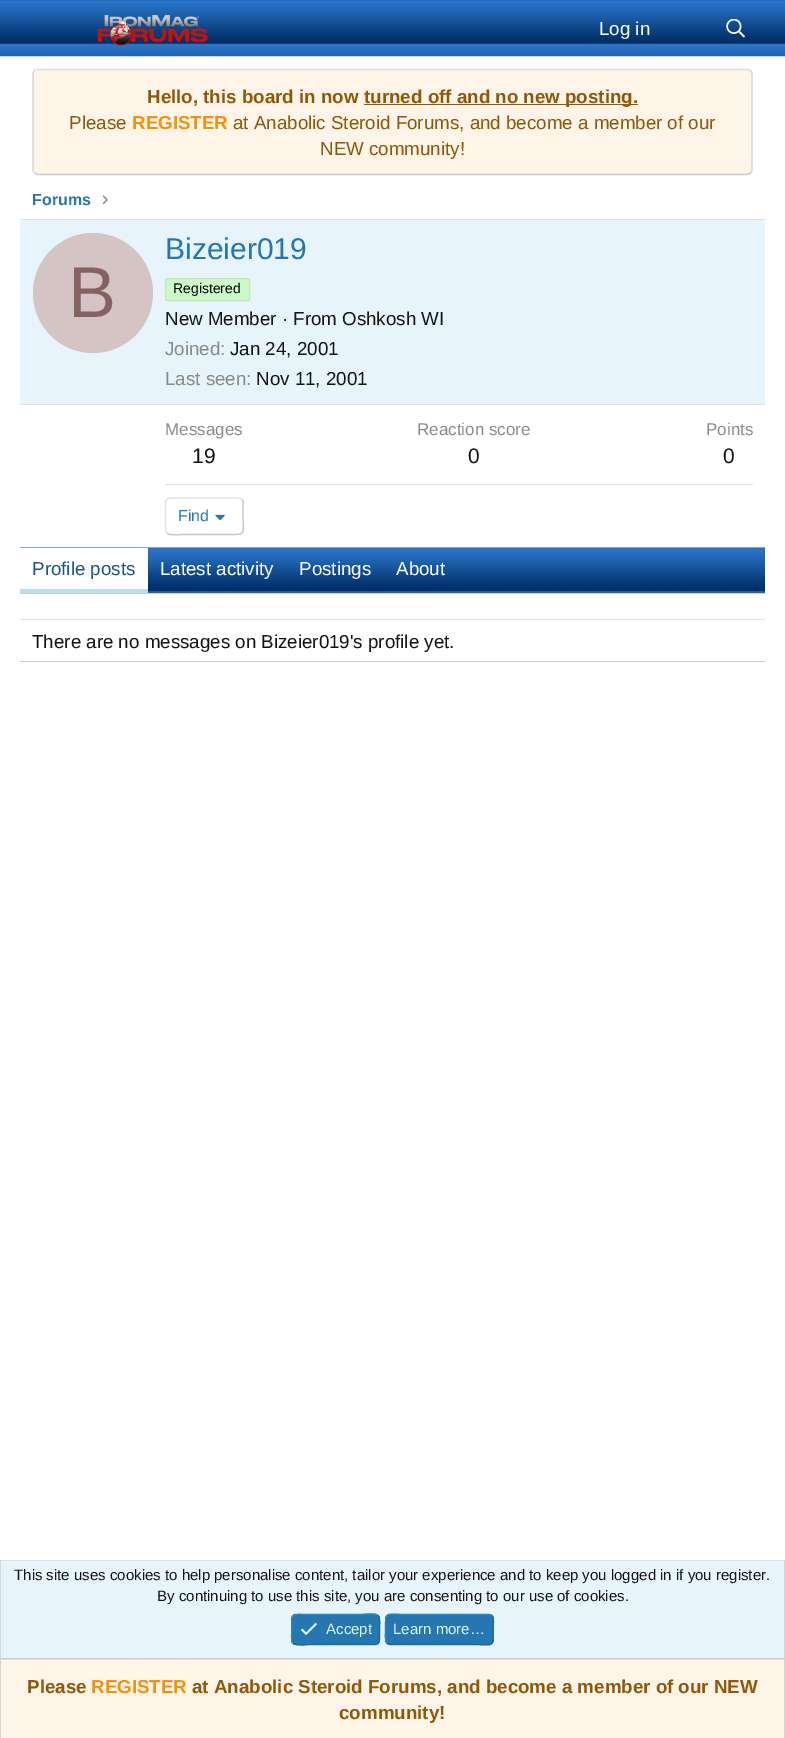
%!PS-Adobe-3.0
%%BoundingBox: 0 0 785 1738
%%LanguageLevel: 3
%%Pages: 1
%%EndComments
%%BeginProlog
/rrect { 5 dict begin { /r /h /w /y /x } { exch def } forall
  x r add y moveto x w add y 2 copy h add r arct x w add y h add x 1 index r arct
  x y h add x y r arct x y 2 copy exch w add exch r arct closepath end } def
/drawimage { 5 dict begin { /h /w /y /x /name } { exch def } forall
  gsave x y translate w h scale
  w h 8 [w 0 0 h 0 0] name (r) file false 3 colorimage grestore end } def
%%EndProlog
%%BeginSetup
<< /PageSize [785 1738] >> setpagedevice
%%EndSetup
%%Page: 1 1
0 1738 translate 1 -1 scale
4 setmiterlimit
1 setgray
0 0 785 1738 rectfill
(images/1.raw) 0 0 785 57 drawimage
(images/2.raw) 97 15 111 31 drawimage
(images/3.raw) 726 19 19 19 drawimage
0.996 0.957 0.906 setrgbcolor
33 69 720 106 5 rrect fill
0.878 setgray
1.2 setlinewidth
newpath 34.5 70.5 moveto 37.5 69.5 lineto 747.5 69.5 lineto 750.5 70.5 lineto stroke
0.839 setgray
newpath 750.5 70.5 moveto 752 73.5 lineto 752 170.5 lineto 750.5 173 lineto stroke
0.8 setgray
newpath 750.5 173 moveto 747.5 174.5 lineto 37.5 174.5 lineto 34.5 173 lineto stroke
0.839 setgray
newpath 34.5 173 moveto 33 170.5 lineto 33 73.5 lineto 34.5 70.5 lineto stroke
0.569 0.345 0.031 setrgbcolor
364 104 274 1 rectfill
(images/4.raw) 103 195 5 10 drawimage
0.878 setgray
20 219 745 1 rectfill
0.8 setgray
20 593 745 1 rectfill
0.91 0.957 0.988 setrgbcolor
newpath 24 220 moveto 761 220 lineto 763 220 765 222 765 224 curveto 765 405 lineto 20 405 lineto 20 224 lineto 20 222 22 220 24 220 curveto closepath fill
0.878 setgray
20 404 745 1 rectfill
0.831 0.769 0.769 setrgbcolor
newpath 93 293 60 0 360 arc closepath fill
0.8 0.976 0.784 setrgbcolor
165.5 278.5 84 22 2 rrect gsave fill grestore
0.745 0.91 0.729 setrgbcolor
1 setlinewidth
stroke
0.878 setgray
165 484 588 1 rectfill
0.788 setgray
1.2 setlinewidth
newpath 242 499.5 moveto 244 501.5 243 504.5 243 507 curveto 243 516 lineto 243 535.5 246.5 534.5 227.5 534.5 curveto 181.5 534.5 lineto 181 534.5 170 536 167 533 curveto stroke
0.89 setgray
newpath 167 533 moveto 165 531 165.5 528 165.5 525.5 curveto 165.5 516 lineto 165.5 497 162.5 498 181.5 498 curveto 227.5 498 lineto 228 498 238.5 496.5 242 499.5 curveto stroke
(images/5.raw) 215 514 10 7 drawimage
0.094 0.345 0.525 setrgbcolor
148 592 617 1 rectfill
(images/6.raw) 20 547 745 46 drawimage
1 setgray
20 548 128 41 rectfill
0.737 0.871 0.961 setrgbcolor
20 589 128 4 rectfill
0.878 setgray
20 619 745 1 rectfill
0.8 setgray
20 661 745 1 rectfill
0.91 0.957 0.988 setrgbcolor
1 1561 783 97 rectfill
0.878 setgray
0 1560 785 1 rectfill
0.839 setgray
784 1560 1 99 rectfill
0.8 setgray
0 1658 785 1 rectfill
0.839 setgray
0 1560 1 99 rectfill
0.145 0.467 0.694 setrgbcolor
291 1614 89 31 5 rrect fill
0.129 0.412 0.612 setrgbcolor
newpath 378 1615.5 moveto 380.5 1618.5 379.5 1626 379.5 1629.5 curveto 379.5 1647 381 1644.5 362 1644.5 curveto 309.5 1644.5 lineto 308 1644.5 296.5 1646.5 293 1643 curveto stroke
0.161 0.522 0.776 setrgbcolor
newpath 293 1643 moveto 290.5 1640.5 292 1632.5 292 1629.5 curveto 292 1611.5 290.5 1614.5 309.5 1614.5 curveto 362 1614.5 lineto 363 1614.5 375 1612.5 378 1615.5 curveto stroke
(images/7.raw) 301 1622 16 14 drawimage
0.145 0.467 0.694 setrgbcolor
385 1614 109 31 5 rrect fill
0.129 0.412 0.612 setrgbcolor
newpath 492 1615.5 moveto 494.5 1618.5 493 1626 493 1629.5 curveto 493 1648.5 494 1644.5 472.5 1644.5 curveto 390 1644.5 lineto 387 1643 lineto stroke
0.161 0.522 0.776 setrgbcolor
newpath 387 1643 moveto 384.5 1640.5 385.5 1632.5 385.5 1629.5 curveto 385.5 1610.5 385 1614.5 406.5 1614.5 curveto 489 1614.5 lineto 492 1615.5 lineto stroke
0.996 0.957 0.906 setrgbcolor
1 1660 783 78 rectfill
0.878 setgray
0 1659 785 1 rectfill
0.839 setgray
784 1659 1 79 rectfill
0 1659 1 79 rectfill
/LiberationSans-Regular [18.75 0 0 -18.75 0 0] selectfont
1 setgray
599 35 moveto (Log in) show
/LiberationSans-Bold [18.75 0 0 -18.75 0 0] selectfont
0.569 0.345 0.031 setrgbcolor
147 103 moveto (Hello, this board in now) show
364 103 moveto (turned off and no new posting.) show
/LiberationSans-Regular [18.75 0 0 -18.75 0 0] selectfont
69 129 moveto (Please) show
/LiberationSans-Bold [18.75 0 0 -18.75 0 0] selectfont
0.949 0.576 0.051 setrgbcolor
132 129 moveto (REGISTER) show
/LiberationSans-Regular [18.75 0 0 -18.75 0 0] selectfont
0.569 0.345 0.031 setrgbcolor
233 129 moveto (at Anabolic Steroid Forums, and become a member of our) show
320 155 moveto (NEW community!) show
/LiberationSans-Bold [16 0 0 -16 0 0] selectfont
0.145 0.467 0.694 setrgbcolor
32 205 moveto (Forums) show
/LiberationSans-Regular [72 0 0 -72 0 0] selectfont
0.518 0.384 0.384 setrgbcolor
68 317 moveto (B) show
/LiberationSans-Regular [30 0 0 -30 0 0] selectfont
0.145 0.467 0.694 setrgbcolor
165 259 moveto (Bizeier019) show
/LiberationSans-Regular [14 0 0 -14 0 0] selectfont
0 setgray
173 293 moveto (Registered) show
/LiberationSans-Regular [18.75 0 0 -18.75 0 0] selectfont
0.078 setgray
165 325 moveto (New Member · From Oshkosh WI) show
0.541 setgray
165 355 moveto (Joined:) show
0.078 setgray
230 355 moveto (Jan 24, 2001) show
0.541 setgray
165 385 moveto (Last seen:) show
0.078 setgray
256 385 moveto (Nov 11, 2001) show
/LiberationSans-Regular [17 0 0 -17 0 0] selectfont
0.541 setgray
165 435 moveto (Messages) show
/LiberationSans-Regular [21 0 0 -21 0 0] selectfont
0.078 setgray
192 463 moveto (19) show
/LiberationSans-Regular [17 0 0 -17 0 0] selectfont
0.541 setgray
417 435 moveto (Reaction score) show
/LiberationSans-Regular [21 0 0 -21 0 0] selectfont
0.078 setgray
468 463 moveto (0) show
/LiberationSans-Regular [17 0 0 -17 0 0] selectfont
0.541 setgray
706 435 moveto (Points) show
/LiberationSans-Regular [21 0 0 -21 0 0] selectfont
0.078 setgray
723 463 moveto (0) show
/LiberationSans-Regular [16 0 0 -16 0 0] selectfont
0.145 0.467 0.694 setrgbcolor
178 521 moveto (Find) show
/LiberationSans-Regular [18.75 0 0 -18.75 0 0] selectfont
0.094 0.345 0.525 setrgbcolor
32 575 moveto (Profile posts) show
1 setgray
160 575 moveto (Latest activity) show
299 575 moveto (Postings) show
396 575 moveto (About) show
0.078 setgray
32 648 moveto (There are no messages on Bizeier019's profile yet.) show
/LiberationSans-Regular [15 0 0 -15 0 0] selectfont
14 1580 moveto (This site uses cookies to help personalise content, tailor your experience and to keep you logged in if you register.) show
157 1601 moveto (By continuing to use this site, you are consenting to our use of cookies.) show
0.91 0.957 0.988 setrgbcolor
326 1634 moveto (Accept) show
393 1634 moveto (Learn more…) show
/LiberationSans-Bold [18.75 0 0 -18.75 0 0] selectfont
0.569 0.345 0.031 setrgbcolor
27 1693 moveto (Please) show
0.949 0.576 0.051 setrgbcolor
91 1693 moveto (REGISTER) show
0.569 0.345 0.031 setrgbcolor
192 1693 moveto (at Anabolic Steroid Forums, and become a member of our NEW) show
339 1719 moveto (community!) show
showpage
%%EOF
